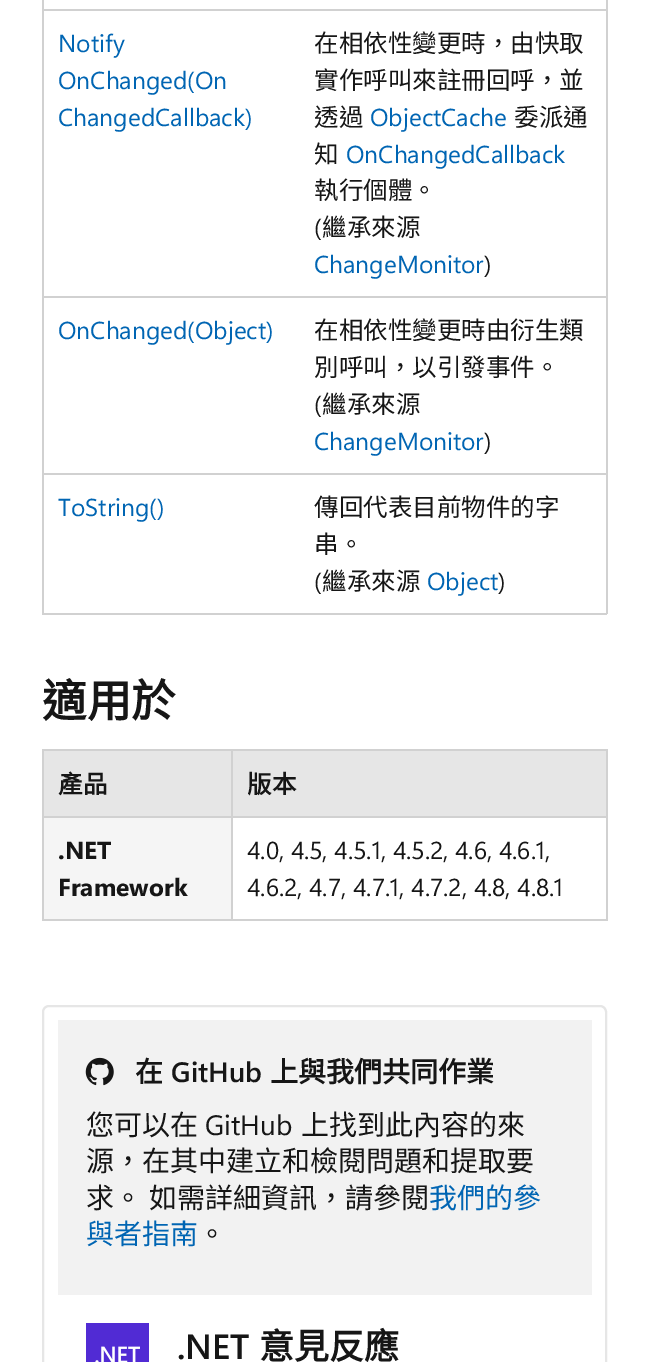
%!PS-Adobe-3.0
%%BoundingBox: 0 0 649 1362
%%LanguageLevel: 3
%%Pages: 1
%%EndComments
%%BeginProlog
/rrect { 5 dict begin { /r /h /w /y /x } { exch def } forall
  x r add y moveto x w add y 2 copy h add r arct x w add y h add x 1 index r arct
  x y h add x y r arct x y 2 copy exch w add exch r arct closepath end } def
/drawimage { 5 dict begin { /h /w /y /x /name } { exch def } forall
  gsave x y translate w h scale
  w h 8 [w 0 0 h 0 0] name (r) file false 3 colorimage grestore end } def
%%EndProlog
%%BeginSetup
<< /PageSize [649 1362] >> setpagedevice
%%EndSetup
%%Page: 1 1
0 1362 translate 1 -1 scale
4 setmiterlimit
1 setgray
0 0 649 1362 rectfill
0.82 setgray
606 0 2 614 rectfill
42 613 565 2 rectfill
42 0 2 614 rectfill
42 9 565 2 rectfill
42 296 565 2 rectfill
42 473 565 2 rectfill
42 749 565 2 rectfill
606 749 2 172 rectfill
42 919 565 2 rectfill
42 749 2 172 rectfill
0.902 setgray
44 751 562 65 rectfill
0.82 setgray
231 816 376 2 rectfill
231 816 2 105 rectfill
42 816 191 2 rectfill
231 749 2 68 rectfill
0.961 setgray
44 818 187 101 rectfill
0.902 setgray
2 setlinewidth
43 1006 563 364 6 rrect stroke
0.949 setgray
58 1020 534 275 rectfill
(images/1.raw) 85 1057 29 29 drawimage
(images/2.raw) 86 1323 63 39 drawimage
/SegoeUI-Regular [24.5 0 0 -24.5 0 0] selectfont
0 0.396 0.702 setrgbcolor
58 52 moveto (Notify) show
58 89 moveto (OnChanged\(On) show
58 126 moveto (ChangedCallback\)) show
/NotoSansCJKTC-Regular [24.5 0 0 -24.5 0 0] selectfont
0.086 setgray
314 52 moveto (在相依性變更時，由快取) show
314 89 moveto (實作呼叫來註冊回呼，並) show
314 126 moveto (透過) show
/SegoeUI-Regular [24.5 0 0 -24.5 0 0] selectfont
0 0.396 0.702 setrgbcolor
370 126 moveto (ObjectCache) show
/NotoSansCJKTC-Regular [24.5 0 0 -24.5 0 0] selectfont
0.086 setgray
514 126 moveto (委派通) show
314 163 moveto (知) show
/SegoeUI-Regular [24.5 0 0 -24.5 0 0] selectfont
0 0.396 0.702 setrgbcolor
346 163 moveto (OnChangedCallback) show
/NotoSansCJKTC-Regular [24.5 0 0 -24.5 0 0] selectfont
0.086 setgray
314 199 moveto (執行個體。) show
/SegoeUI-Regular [24.5 0 0 -24.5 0 0] selectfont
314 236 moveto (\() show
/NotoSansCJKTC-Regular [24.5 0 0 -24.5 0 0] selectfont
322 236 moveto (繼承來源) show
/SegoeUI-Regular [24.5 0 0 -24.5 0 0] selectfont
0 0.396 0.702 setrgbcolor
314 273 moveto (ChangeMonitor) show
0.086 setgray
484 273 moveto (\)) show
0 0.396 0.702 setrgbcolor
58 339 moveto (OnChanged\(Object\)) show
/NotoSansCJKTC-Regular [24.5 0 0 -24.5 0 0] selectfont
0.086 setgray
314 339 moveto (在相依性變更時由衍生類) show
314 376 moveto (別呼叫，以引發事件。) show
/SegoeUI-Regular [24.5 0 0 -24.5 0 0] selectfont
314 413 moveto (\() show
/NotoSansCJKTC-Regular [24.5 0 0 -24.5 0 0] selectfont
322 413 moveto (繼承來源) show
/SegoeUI-Regular [24.5 0 0 -24.5 0 0] selectfont
0 0.396 0.702 setrgbcolor
314 450 moveto (ChangeMonitor) show
0.086 setgray
484 450 moveto (\)) show
0 0.396 0.702 setrgbcolor
58 516 moveto (ToString\(\)) show
/NotoSansCJKTC-Regular [24.5 0 0 -24.5 0 0] selectfont
0.086 setgray
314 516 moveto (傳回代表目前物件的字) show
314 553 moveto (串。) show
/SegoeUI-Regular [24.5 0 0 -24.5 0 0] selectfont
314 590 moveto (\() show
/NotoSansCJKTC-Regular [24.5 0 0 -24.5 0 0] selectfont
322 590 moveto (繼承來源) show
/SegoeUI-Regular [24.5 0 0 -24.5 0 0] selectfont
0 0.396 0.702 setrgbcolor
427 590 moveto (Object) show
0.086 setgray
498 590 moveto (\)) show
/NotoSansCJKTC-Bold [44.5 0 0 -44.5 0 0] selectfont
42 717 moveto (適用於) show
/NotoSansCJKTC-Bold [24.5 0 0 -24.5 0 0] selectfont
58 793 moveto (產品) show
247 793 moveto (版本) show
/SegoeUI-Bold [24.5 0 0 -24.5 0 0] selectfont
58 859 moveto (.NET) show
58 896 moveto (Framework) show
/SegoeUI-Regular [24.5 0 0 -24.5 0 0] selectfont
247 859 moveto (4.0, 4.5, 4.5.1, 4.5.2, 4.6, 4.6.1,) show
247 896 moveto (4.6.2, 4.7, 4.7.1, 4.7.2, 4.8, 4.8.1) show
/NotoSansCJKTC-Bold [28 0 0 -28 0 0] selectfont
135 1082 moveto (在) show
/SegoeUI-SemiBold [28 0 0 -28 0 0] selectfont
171 1082 moveto (GitHub) show
/NotoSansCJKTC-Bold [28 0 0 -28 0 0] selectfont
270 1082 moveto (上與我們共同作業) show
/NotoSansCJKTC-Regular [28 0 0 -28 0 0] selectfont
86 1135 moveto (您可以在) show
/SegoeUI-Regular [28 0 0 -28 0 0] selectfont
205 1135 moveto (GitHub) show
/NotoSansCJKTC-Regular [28 0 0 -28 0 0] selectfont
301 1135 moveto (上找到此內容的來) show
86 1171 moveto (源，在其中建立和檢閱問題和提取要) show
86 1208 moveto 1 0 32 (求。 如需詳細資訊，請參閱) widthshow
0 0.396 0.702 setrgbcolor
429 1208 moveto (我們的參) show
86 1244 moveto (與者指南) show
0.086 setgray
198 1244 moveto (。) show
/SegoeUI-SemiBold [35 0 0 -35 0 0] selectfont
177 1359 moveto (.NET) show
/NotoSansCJKTC-Bold [35 0 0 -35 0 0] selectfont
259 1359 moveto (意見反應) show
showpage
%%EOF
